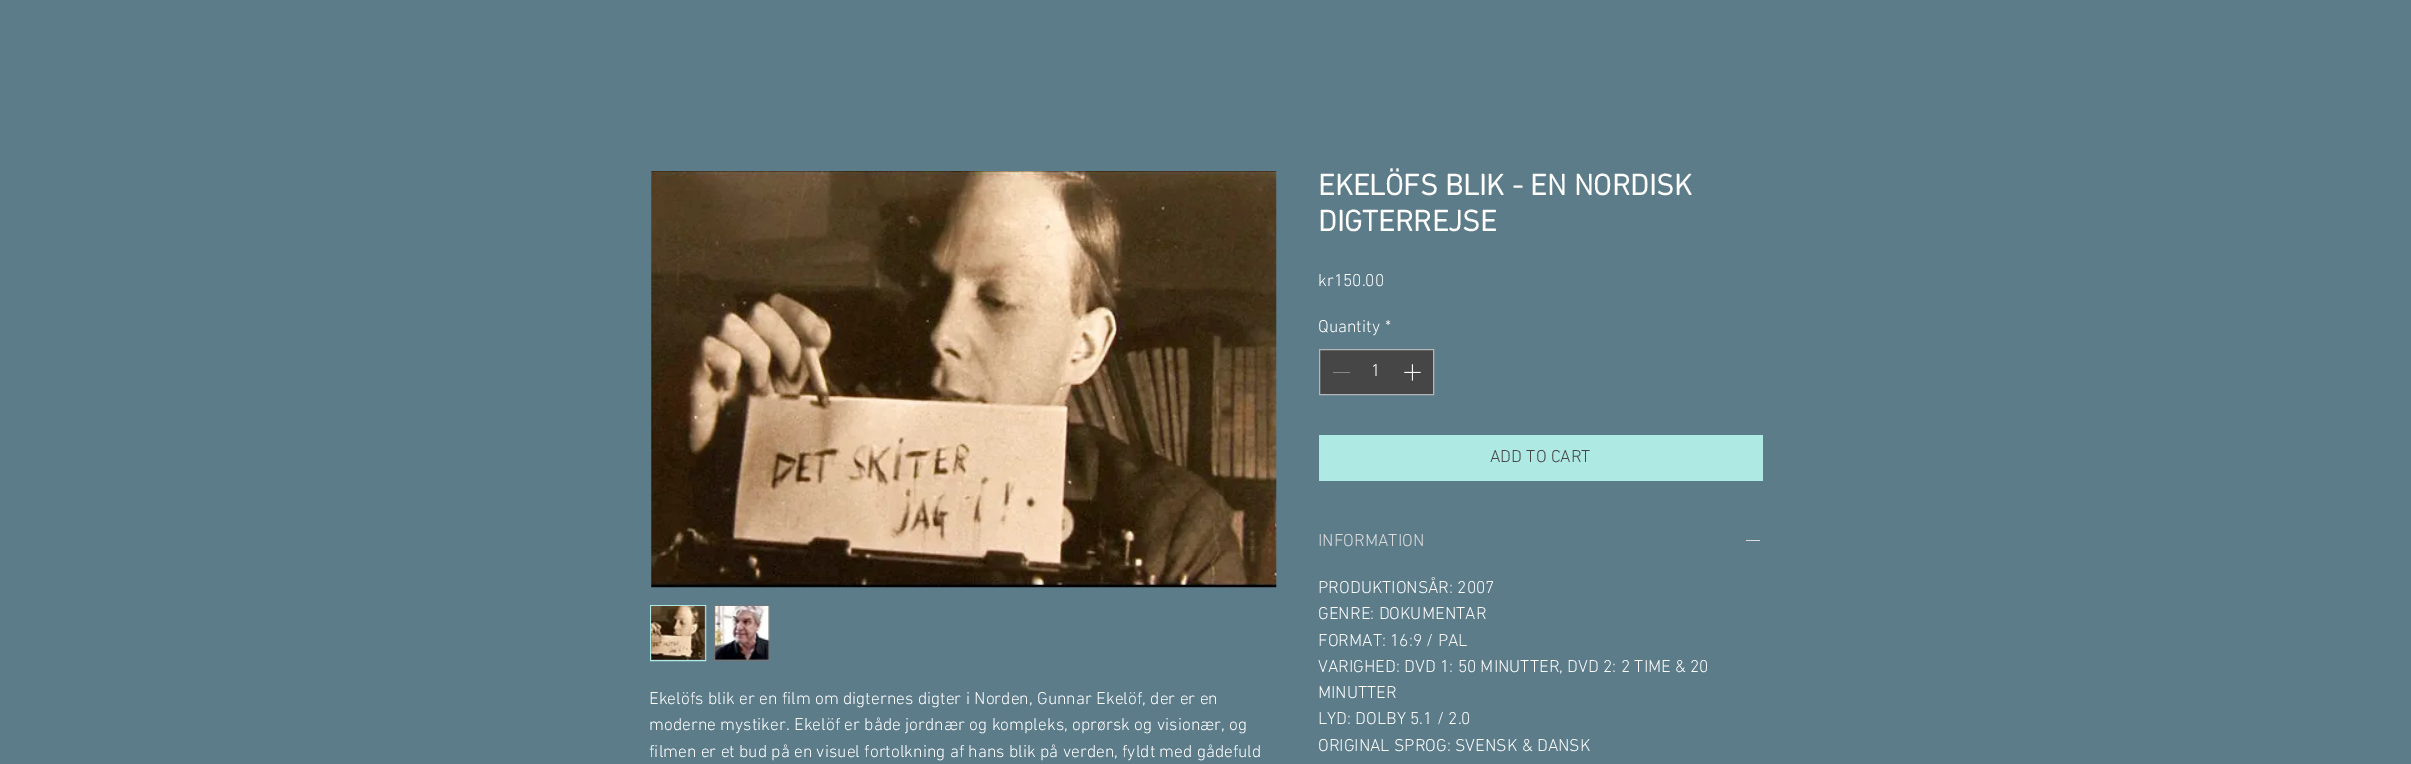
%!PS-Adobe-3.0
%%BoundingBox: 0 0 2411 764
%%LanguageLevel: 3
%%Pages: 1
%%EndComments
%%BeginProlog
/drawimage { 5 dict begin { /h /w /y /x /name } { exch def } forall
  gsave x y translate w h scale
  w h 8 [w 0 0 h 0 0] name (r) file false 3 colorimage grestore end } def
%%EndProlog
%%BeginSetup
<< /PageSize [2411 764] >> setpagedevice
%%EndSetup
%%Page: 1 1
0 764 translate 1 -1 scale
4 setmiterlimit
0.361 0.486 0.541 setrgbcolor
0 0 2411 764 rectfill
(images/1.raw) 651 171 626 417 drawimage
0.463 setgray
newpath 650.5 605.5 moveto 705.5 605.5 lineto 705.5 660.5 lineto 650.5 660.5 lineto closepath gsave fill grestore
0.682 0.914 0.894 setrgbcolor
stroke
(images/2.raw) 651 606 55 54 drawimage
0.463 setgray
714 605 56 56 rectfill
(images/3.raw) 714 606 56 54 drawimage
0.278 0.275 0.275 setrgbcolor
newpath 1319.5 349.5 moveto 1433.5 349.5 lineto 1433.5 394.5 lineto 1319.5 394.5 lineto closepath gsave fill grestore
0.71 setgray
stroke
0.529 setgray
1333 372 17 1 rectfill
(images/4.raw) 1404 364 17 17 drawimage
0.682 0.914 0.894 setrgbcolor
1319 435 444 46 rectfill
0.871 0.867 0.867 setrgbcolor
1746 540 14 1 rectfill
/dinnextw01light-Light [17.5 0 0 -17.5 0 0] selectfont
1 setgray
649 704 moveto (Ekelöfs blik er en film om digternes digter i Norden, Gunnar Ekelöf, der er en) show
649 730 moveto (moderne mystiker. Ekelöf er både jordnær og kompleks, oprørsk og visionær, og) show
649 757 moveto (filmen er et bud på en visuel fortolkning af hans blik på verden, fyldt med gådefuld) show
/dinnextw01light-Bold [30 0 0 -30 0 0] selectfont
1318 195 moveto (EKELÖFS BLIK - EN NORDISK) show
1318 231 moveto (DIGTERREJSE) show
/dinnextw01light-Light [17.5 0 0 -17.5 0 0] selectfont
1318 286 moveto (kr150.00) show
1318 332 moveto (Quantity) show
1385 332 moveto (*) show
1371 376 moveto (1) show
0.278 0.275 0.275 setrgbcolor
1490 462 moveto (ADD TO CART) show
0.871 0.867 0.867 setrgbcolor
1318 546 moveto (INFORMATION) show
1 setgray
1318 593 moveto (PRODUKTIONSÅR: 2007) show
1318 619 moveto (GENRE: DOKUMENTAR) show
1318 646 moveto (FORMAT: 16:9 / PAL) show
1318 672 moveto (VARIGHED: DVD 1: 50 MINUTTER, DVD 2: 2 TIME & 20) show
1318 698 moveto (MINUTTER) show
1318 724 moveto (LYD: DOLBY 5.1 / 2.0) show
1318 751 moveto (ORIGINAL SPROG: SVENSK & DANSK) show
showpage
%%EOF
